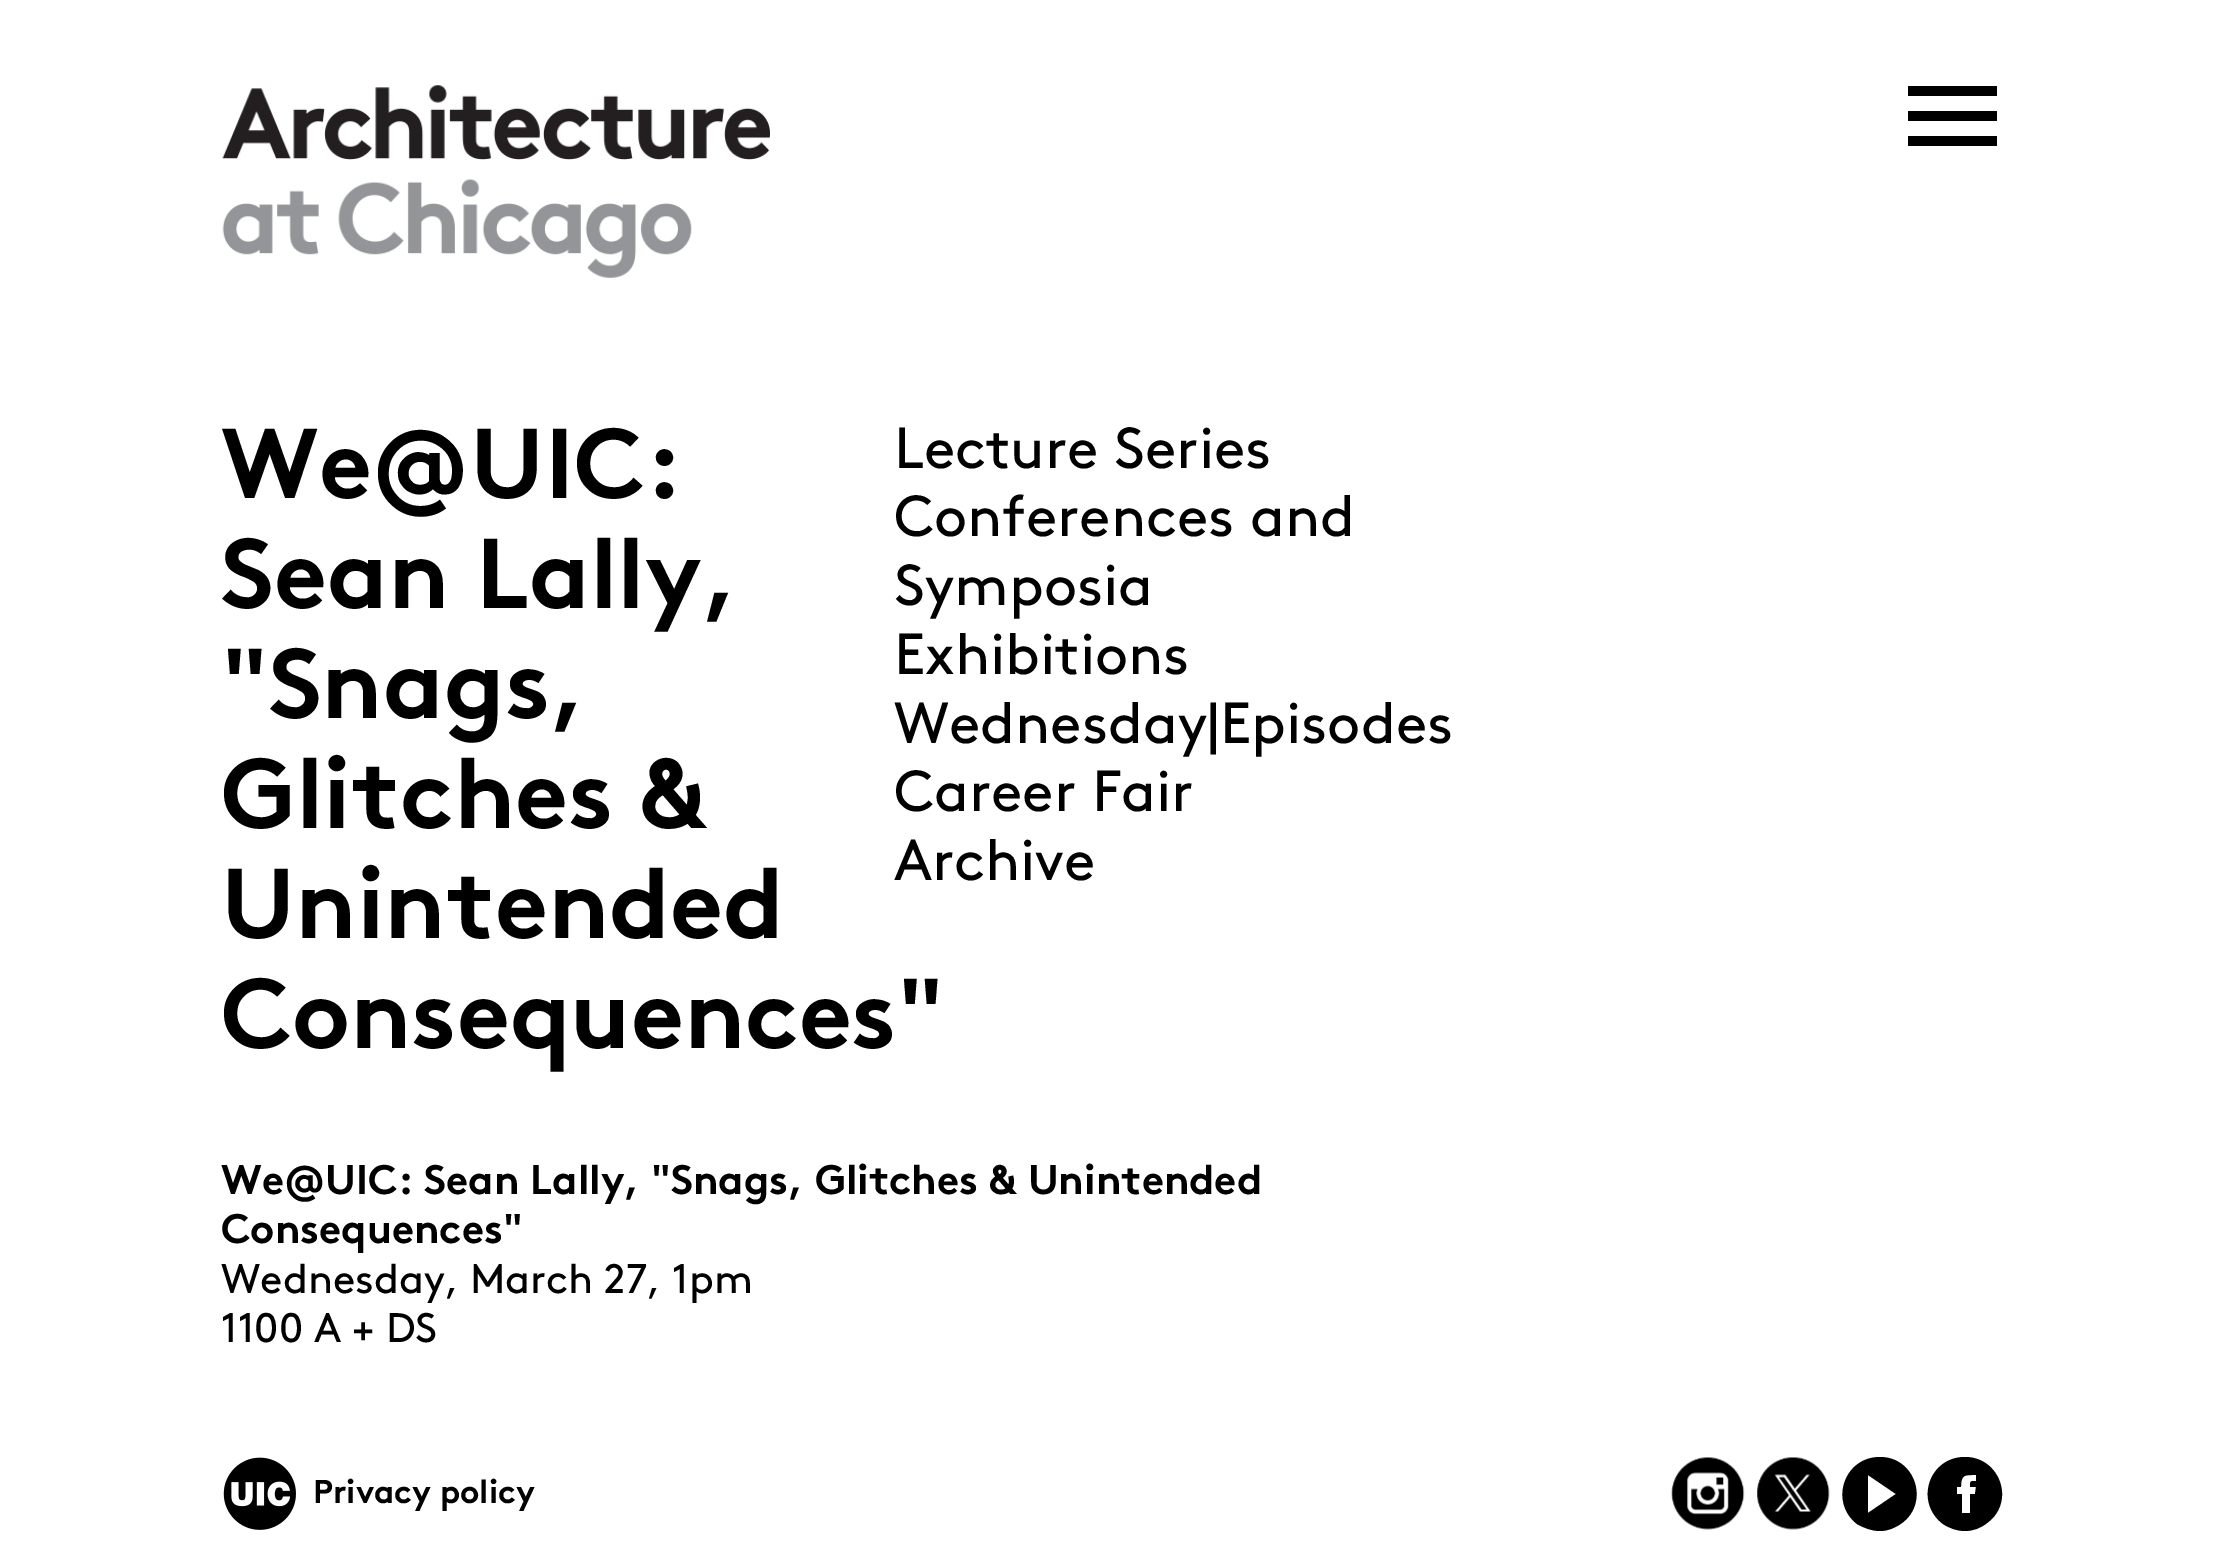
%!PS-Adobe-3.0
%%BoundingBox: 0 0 2219 1557
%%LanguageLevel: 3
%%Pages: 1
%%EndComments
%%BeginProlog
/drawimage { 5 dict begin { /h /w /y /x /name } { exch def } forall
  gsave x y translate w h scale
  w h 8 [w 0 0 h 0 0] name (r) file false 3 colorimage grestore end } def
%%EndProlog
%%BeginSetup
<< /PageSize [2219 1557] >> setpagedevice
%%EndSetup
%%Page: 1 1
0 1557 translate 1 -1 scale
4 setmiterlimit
1 setgray
0 0 2219 1557 rectfill
(images/1.raw) 222 85 548 193 drawimage
0 setgray
newpath 1908 146 moveto 1908 136 lineto 1997 136 lineto 1997 146 lineto closepath 1908 121 moveto 1908 111 lineto 1997 111 lineto 1997 121 lineto closepath 1908 86 moveto 1997 86 lineto 1997 96 lineto 1908 96 lineto closepath fill
(images/2.raw) 223 1457 73 73 drawimage
(images/3.raw) 1671 1457 74 73 drawimage
(images/4.raw) 1757 1457 73 73 drawimage
newpath 1880 1457 moveto 1844 1457 1829 1502 1857 1524 curveto 1864 1528 1872 1531 1880 1531 curveto 1888 1531 1895 1528 1902 1523 curveto 1930 1502 1915 1457 1880 1457 curveto closepath 1868 1513 moveto 1868 1475 lineto 1896 1494 lineto closepath fill
newpath 1965 1457 moveto 1929 1457 1914 1502 1943 1524 curveto 1949 1528 1957 1531 1965 1531 curveto 1973 1531 1981 1528 1987 1523 curveto 2016 1502 2000 1457 1965 1457 curveto closepath 1976 1481 moveto 1970 1481 1970 1481 1970 1487 curveto 1976 1487 lineto 1975 1494 lineto 1970 1494 lineto 1970 1513 lineto 1962 1513 lineto 1962 1494 lineto 1957 1494 lineto 1957 1487 lineto 1961 1487 lineto 1961 1474 1965 1475 1976 1475 curveto closepath fill
/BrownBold-Bold [99 0 0 -99 0 0] selectfont
221 498 moveto (We@UIC:) show
221 608 moveto (Sean Lally,) show
221 718 moveto ("Snags,) show
221 828 moveto (Glitches &) show
221 938 moveto (Unintended) show
221 1048 moveto (Consequences") show
/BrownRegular-Regular [57.75 0 0 -57.75 0 0] selectfont
894 468 moveto (Lecture Series) show
894 536 moveto (Conferences and) show
894 605 moveto (Symposia) show
894 674 moveto (Exhibitions) show
894 743 moveto (Wednesday|Episodes) show
894 811 moveto (Career Fair) show
894 880 moveto (Archive) show
/BrownBold-Bold [41.25 0 0 -41.25 0 0] selectfont
221 1194 moveto (We@UIC: Sean Lally, "Snags, Glitches & Unintended) show
221 1243 moveto (Consequences") show
/BrownRegular-Regular [41.25 0 0 -41.25 0 0] selectfont
221 1293 moveto (Wednesday, March 27, 1pm) show
221 1342 moveto (1100 A + DS) show
/BrownBold-Bold [33 0 0 -33 0 0] selectfont
313 1503 moveto (Privacy policy) show
showpage
%%EOF
